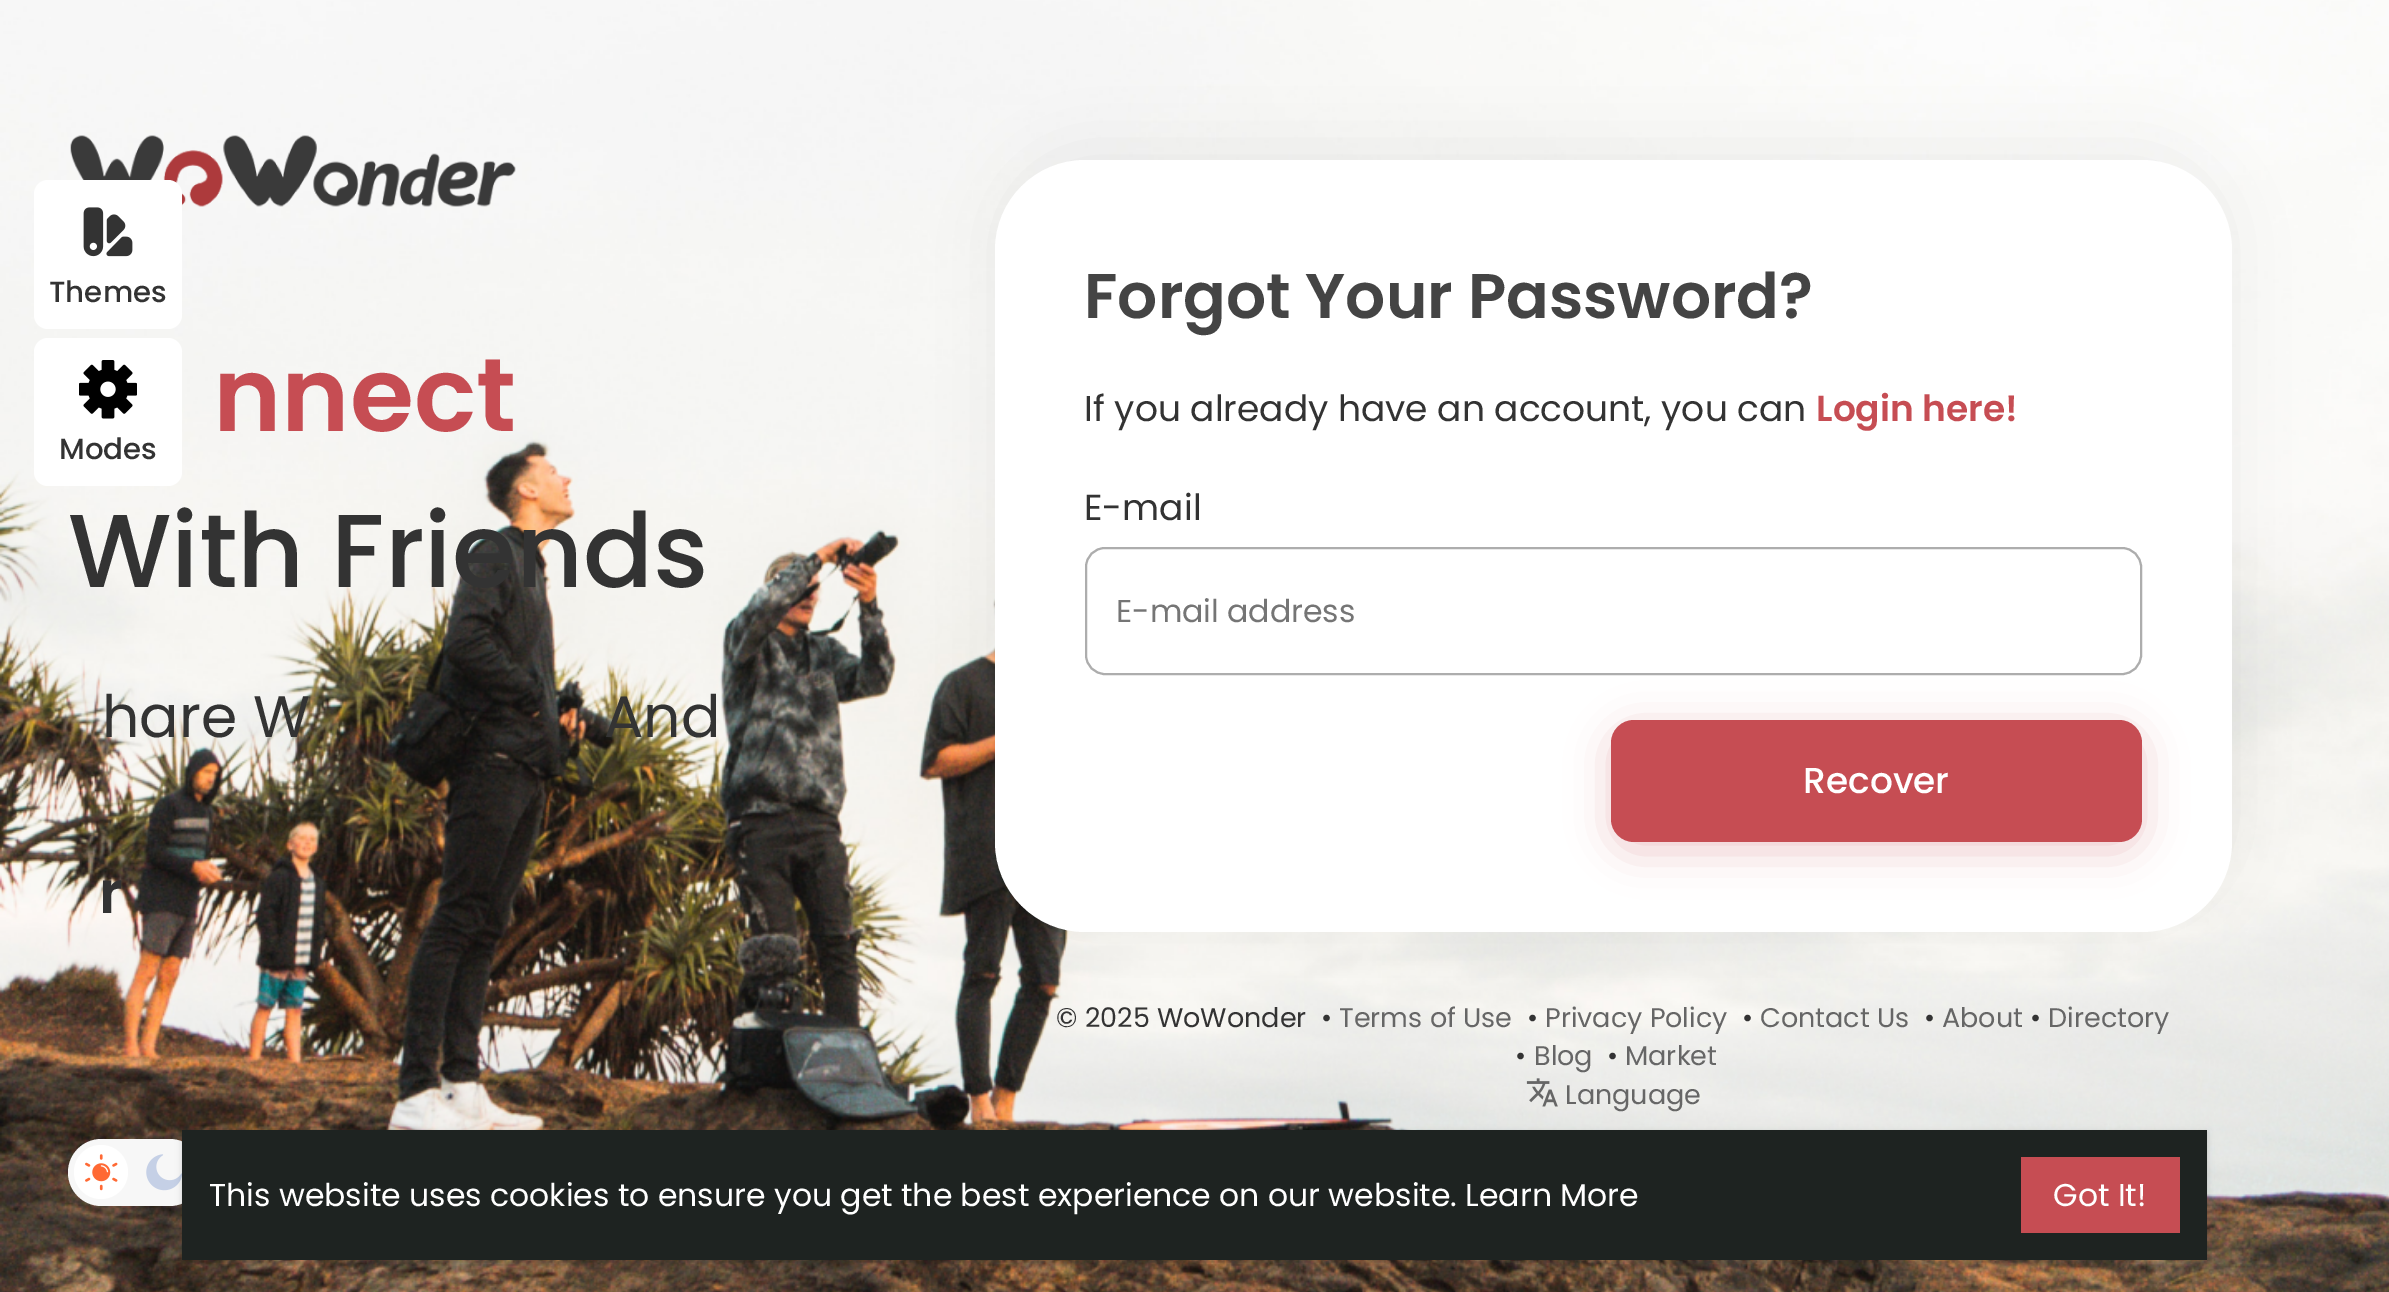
%!PS-Adobe-3.0
%%BoundingBox: 0 0 2389 1292
%%LanguageLevel: 3
%%Pages: 1
%%EndComments
%%BeginProlog
/setalpha { dup .setfillconstantalpha .setstrokeconstantalpha } def
/rrect { 5 dict begin { /r /h /w /y /x } { exch def } forall
  x r add y moveto x w add y 2 copy h add r arct x w add y h add x 1 index r arct
  x y h add x y r arct x y 2 copy exch w add exch r arct closepath end } def
/softshadow { 12 dict begin { /a /b /q /h /w /y /x } { exch def } forall gsave /was 0 def
  9 -2 -9 { dup b mul 4 div /e exch def 1 sub .425 mul 2.718 exch exp 1 add a .99 .min exch div /now exch def
    1 1 now sub 1 was sub div sub setalpha /was now def
    w h .min e 2 mul add 0 gt { x e sub y e sub w e 2 mul add h e 2 mul add
      q e add b .6 mul add w h .min 2 div e add .min 0 .max rrect fill } if } for grestore end } def
/drawimage { 5 dict begin { /h /w /y /x /name } { exch def } forall
  gsave x y translate w h scale
  w h 8 [w 0 0 h 0 0] name (r) file false 3 colorimage grestore end } def
%%EndProlog
%%BeginSetup
<< /PageSize [2389 1292] /PageUsesTransparency true >> setpagedevice
%%EndSetup
%%Page: 1 1
0 .pushpdf14devicefilter
0 1292 translate 1 -1 scale
4 setmiterlimit
1 setgray
0 0 2389 1292 rectfill
(images/1.raw) 0 0 2389 1292 drawimage
(images/2.raw) 70 135 446 72 drawimage
0.969 setgray
68 1139 135 67 33.5 rrect fill
1 setgray
newpath 101 1172 27 0 360 arc closepath fill
(images/3.raw) 85 1154 33 37 drawimage
(images/4.raw) 146 1154 36 37 drawimage
0 setgray
995 146 1237 772 90 34 0.06 softshadow
1 setgray
995 160 1237 772 90 rrect fill
0.678 setgray
2 setlinewidth
1086 548 1055 126 19 rrect stroke
0.776 0.302 0.325 setrgbcolor
1611 729 531 122 23 21.5 0.3 softshadow
1611 720 531 122 23 rrect fill
(images/5.raw) 1526 1078 32 29 drawimage
1 setgray
34 180 148 149 14 rrect fill
(images/6.raw) 83 207 50 50 drawimage
34 338 148 148 14 rrect fill
(images/7.raw) 79 360 58 59 drawimage
0 setgray
182 1132 2025 130 0 2 0.06 softshadow
182 1132 2025 130 0 3.5 0.1 softshadow
0.118 0.137 0.129 setrgbcolor
182 1130 2025 130 rectfill
0.776 0.302 0.325 setrgbcolor
2021 1157 159 76 rectfill
/Poppins-SemiBold [103.5 0 0 -103.5 0 0] selectfont
213 431 moveto (nnect) show
/Poppins-Medium [103.5 0 0 -103.5 0 0] selectfont
0.2 setgray
68 587 moveto (With Friends) show
/Poppins-Regular [58.5 0 0 -58.5 0 0] selectfont
102 737 moveto (hare W) show
604 737 moveto (And) show
/Poppins-SemiBold [58.5 0 0 -58.5 0 0] selectfont
99 913 moveto (r) show
/Poppins-SemiBold [63 0 0 -63 0 0] selectfont
0.267 setgray
1084 318 moveto (Forgot Your Password?) show
/Poppins-Regular [36 0 0 -36 0 0] selectfont
0.2 setgray
1084 421 moveto (If you already have an account, you can) show
/Poppins-SemiBold [36 0 0 -36 0 0] selectfont
0.776 0.302 0.325 setrgbcolor
1816 421 moveto (Login here!) show
/Poppins-Regular [36 0 0 -36 0 0] selectfont
0.2 setgray
1084 520 moveto (E-mail) show
/Poppins-Regular [31.5 0 0 -31.5 0 0] selectfont
0.459 setgray
1116 622 moveto (E-mail address) show
/Poppins-Medium [36 0 0 -36 0 0] selectfont
1 setgray
1803 793 moveto (Recover) show
/Poppins-Regular [27 0 0 -27 0 0] selectfont
0.2 setgray
1056 1027 moveto (© 2025 WoWonder) show
1321 1027 moveto (•) show
0.4 setgray
1339 1027 moveto (Terms of Use) show
0.2 setgray
1527 1027 moveto (•) show
0.4 setgray
1545 1027 moveto (Privacy Policy) show
0.2 setgray
1742 1027 moveto (•) show
0.4 setgray
1760 1027 moveto (Contact Us) show
0.2 setgray
1924 1027 moveto (•) show
0.4 setgray
1942 1027 moveto (About) show
0.2 setgray
2030 1027 moveto (•) show
0.4 setgray
2048 1027 moveto (Directory) show
0.2 setgray
1515 1065 moveto (•) show
0.4 setgray
1534 1065 moveto (Blog) show
0.2 setgray
1607 1065 moveto (•) show
0.4 setgray
1625 1065 moveto (Market) show
1565 1104 moveto (Language) show
/Poppins-Medium [29.25 0 0 -29.25 0 0] selectfont
0.2 setgray
49 302 moveto (Themes) show
59 459 moveto (Modes) show
/Poppins-Regular [31.5 0 0 -31.5 0 0] selectfont
1 setgray
209 1206 moveto (This website uses cookies to ensure you get the best experience on our website. Learn More) show
2053 1206 moveto (Got It!) show
.poppdf14devicefilter showpage
%%EOF
